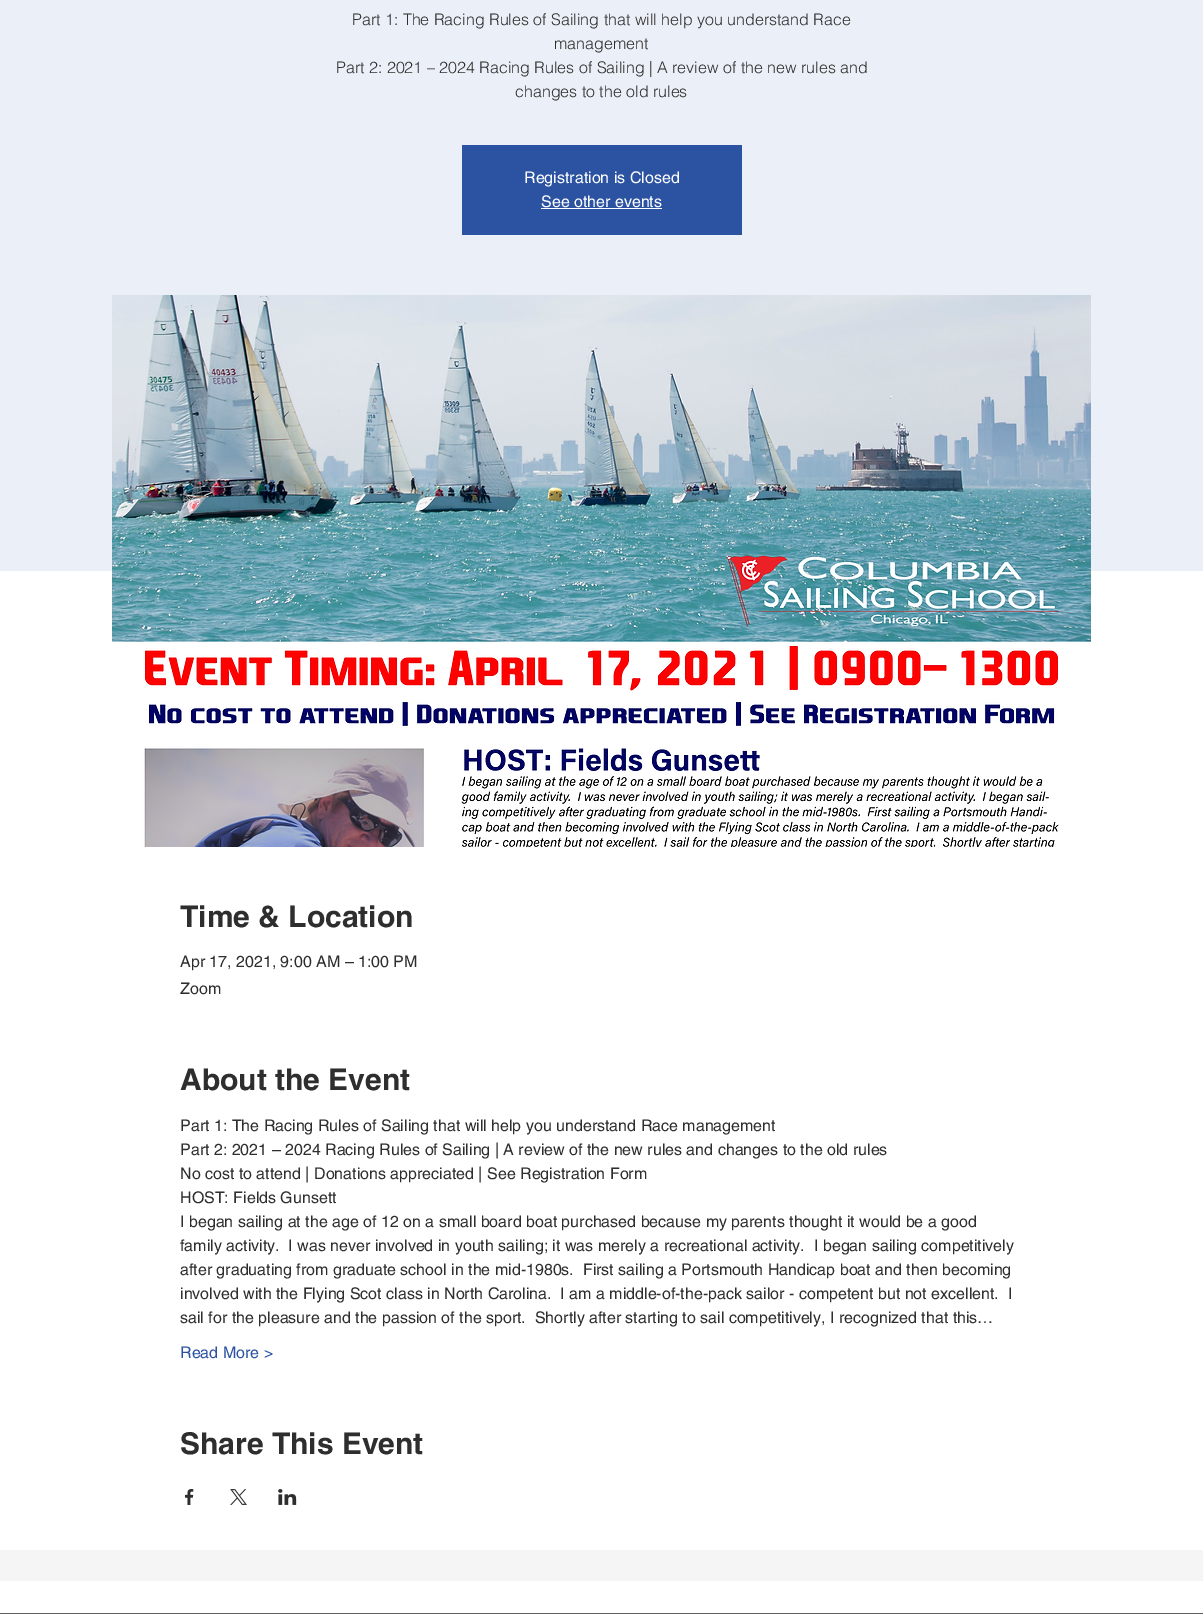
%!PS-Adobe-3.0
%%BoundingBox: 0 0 1203 1617
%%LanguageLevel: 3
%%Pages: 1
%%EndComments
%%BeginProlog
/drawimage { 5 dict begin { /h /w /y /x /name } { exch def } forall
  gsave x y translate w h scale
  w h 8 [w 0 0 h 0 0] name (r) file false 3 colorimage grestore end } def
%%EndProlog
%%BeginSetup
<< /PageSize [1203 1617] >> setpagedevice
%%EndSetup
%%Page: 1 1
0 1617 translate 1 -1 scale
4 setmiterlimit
1 setgray
0 0 1203 1617 rectfill
0.922 0.937 0.969 setrgbcolor
0 0 1203 571 rectfill
0.173 0.325 0.635 setrgbcolor
462 145 280 90 rectfill
1 setgray
541 208 121 1 rectfill
(images/1.raw) 112 295 979 552 drawimage
(images/2.raw) 185 1489 9 16 drawimage
(images/3.raw) 230 1489 17 16 drawimage
(images/4.raw) 278 1489 19 16 drawimage
0.961 setgray
0 1550 1203 31 rectfill
0.376 0.369 0.369 setrgbcolor
0 1613 1203 1 rectfill
/helvetica-Light [16 0 0 -16 0 0] selectfont
0.184 0.18 0.18 setrgbcolor
352 25 moveto (Part 1: The Racing Rules of Sailing that will help you understand Race) show
554 49 moveto (management) show
336 73 moveto (Part 2: 2021 – 2024 Racing Rules of Sailing | A review of the new rules and) show
515 97 moveto (changes to the old rules) show
/helvetica-Regular [16 0 0 -16 0 0] selectfont
1 setgray
524 183 moveto (Registration is Closed) show
541 207 moveto (See other events) show
/helvetica-Bold [30 0 0 -30 0 0] selectfont
0.184 0.18 0.18 setrgbcolor
180 927 moveto (Time & Location) show
/helvetica-Regular [16 0 0 -16 0 0] selectfont
180 967 moveto (Apr 17, 2021, 9:00 AM – 1:00 PM) show
180 994 moveto (Zoom) show
/helvetica-Bold [30 0 0 -30 0 0] selectfont
180 1090 moveto (About the Event) show
/helvetica-Regular [16 0 0 -16 0 0] selectfont
180 1131 moveto (Part 1: The Racing Rules of Sailing that will help you understand Race management) show
180 1155 moveto (Part 2: 2021 – 2024 Racing Rules of Sailing | A review of the new rules and changes to the old rules) show
180 1179 moveto (No cost to attend | Donations appreciated | See Registration Form) show
180 1203 moveto (HOST: Fields Gunsett) show
180 1227 moveto (I began sailing at the age of 12 on a small board boat purchased because my parents thought it would be a good) show
180 1251 moveto (family activity.  I was never involved in youth sailing; it was merely a recreational activity.  I began sailing competitively) show
180 1275 moveto (after graduating from graduate school in the mid-1980s.  First sailing a Portsmouth Handicap boat and then becoming) show
180 1299 moveto (involved with the Flying Scot class in North Carolina.  I am a middle-of-the-pack sailor - competent but not excellent.  I) show
180 1323 moveto (sail for the pleasure and the passion of the sport.  Shortly after starting to sail competitively, I recognized that this…) show
0.173 0.325 0.635 setrgbcolor
180 1358 moveto (Read More >) show
/helvetica-Bold [30 0 0 -30 0 0] selectfont
0.184 0.18 0.18 setrgbcolor
180 1454 moveto (Share This Event) show
showpage
%%EOF
